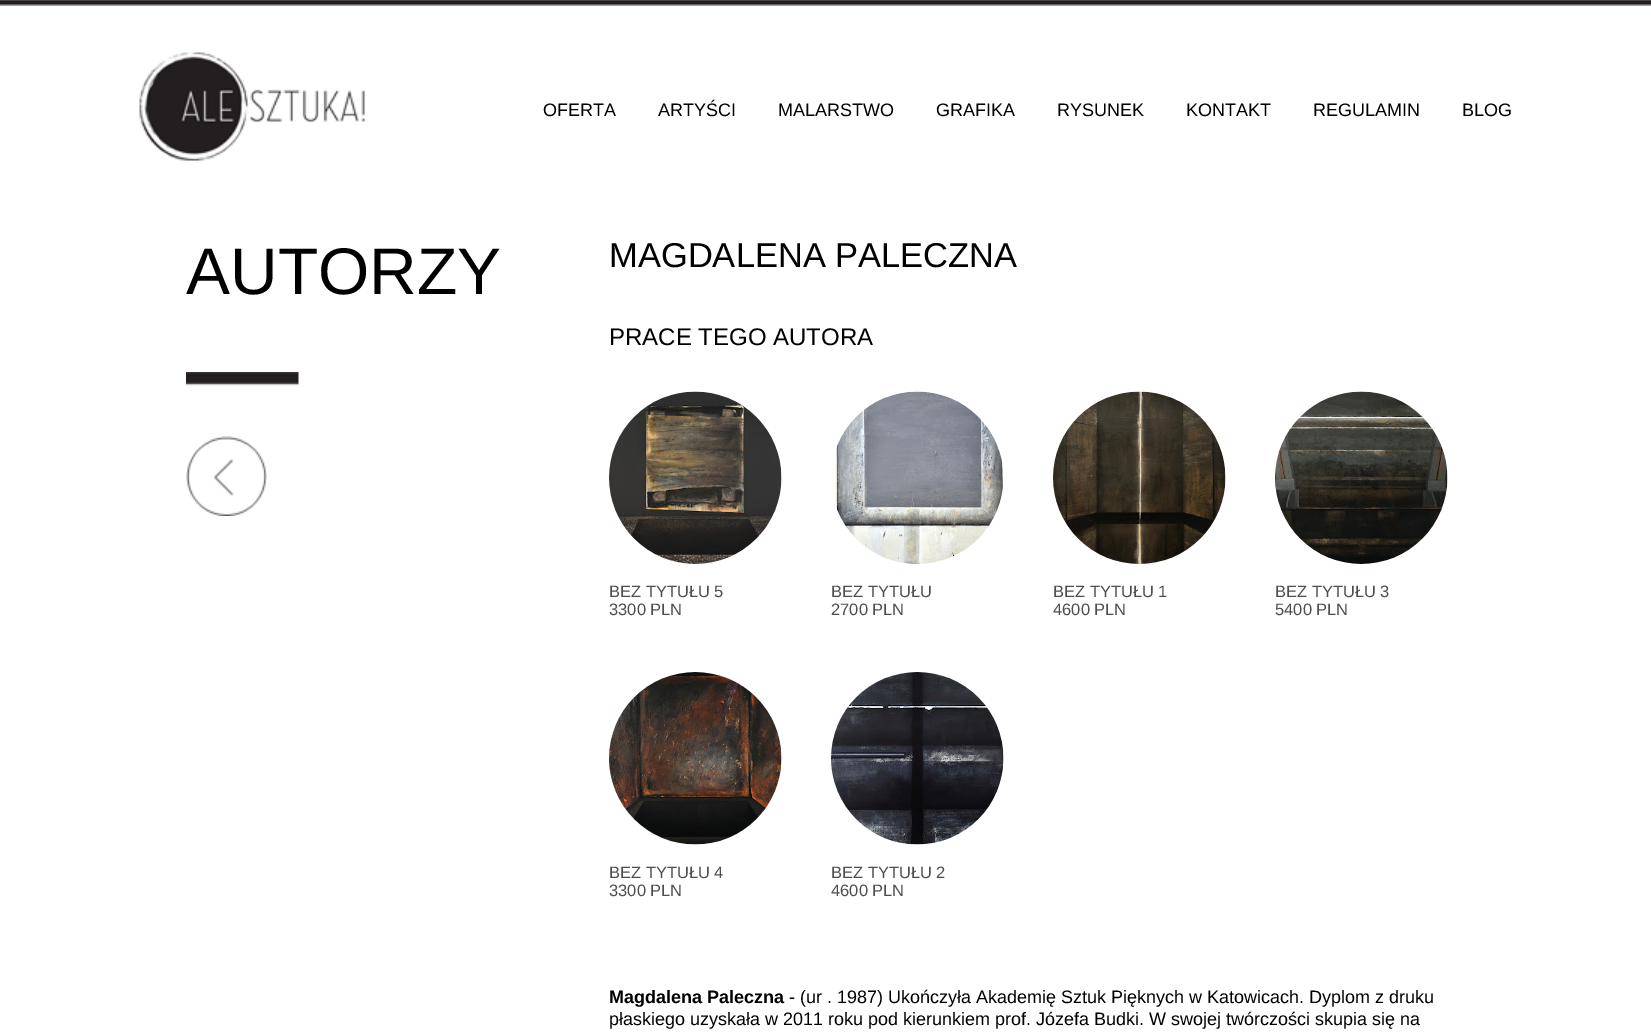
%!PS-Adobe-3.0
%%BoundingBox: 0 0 1651 1033
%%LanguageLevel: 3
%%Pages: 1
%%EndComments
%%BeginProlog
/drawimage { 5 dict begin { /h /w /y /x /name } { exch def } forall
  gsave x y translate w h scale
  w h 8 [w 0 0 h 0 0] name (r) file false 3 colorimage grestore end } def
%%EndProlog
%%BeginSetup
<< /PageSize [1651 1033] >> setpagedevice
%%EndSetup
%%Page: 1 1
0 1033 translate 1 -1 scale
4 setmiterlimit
1 setgray
0 0 1651 1033 rectfill
(images/1.raw) 0 0 1651 6 drawimage
(images/2.raw) 139 52 226 109 drawimage
(images/3.raw) 186 372 113 14 drawimage
(images/4.raw) 186 436 81 80 drawimage
(images/5.raw) 609 391 173 173 drawimage
(images/6.raw) 831 391 173 173 drawimage
(images/7.raw) 1053 391 173 173 drawimage
(images/8.raw) 1275 391 173 173 drawimage
(images/9.raw) 609 672 173 173 drawimage
(images/10.raw) 831 672 173 173 drawimage
/LiberationSans-Regular [18 0 0 -18 0 0] selectfont
0 setgray
543 116 moveto (OFERTA) show
658 116 moveto (ARTYŚCI) show
778 116 moveto (MALARSTWO) show
936 116 moveto (GRAFIKA) show
1057 116 moveto (RYSUNEK) show
1186 116 moveto (KONTAKT) show
1313 116 moveto (REGULAMIN) show
1462 116 moveto (BLOG) show
/LiberationSans-Regular [66 0 0 -66 0 0] selectfont
186 294 moveto (AUTORZY) show
/LiberationSans-Regular [34.5 0 0 -34.5 0 0] selectfont
609 267 moveto (MAGDALENA PALECZNA) show
/LiberationSans-Regular [24 0 0 -24 0 0] selectfont
609 345 moveto (PRACE TEGO AUTORA) show
/LiberationSans-Regular [16.5 0 0 -16.5 0 0] selectfont
0.306 setgray
609 597 moveto (BEZ TYTUŁU 5) show
609 615 moveto (3300 PLN) show
831 597 moveto (BEZ TYTUŁU) show
831 615 moveto (2700 PLN) show
1053 597 moveto (BEZ TYTUŁU 1) show
1053 615 moveto (4600 PLN) show
1275 597 moveto (BEZ TYTUŁU 3) show
1275 615 moveto (5400 PLN) show
609 878 moveto (BEZ TYTUŁU 4) show
609 896 moveto (3300 PLN) show
831 878 moveto (BEZ TYTUŁU 2) show
831 896 moveto (4600 PLN) show
/LiberationSans-Bold [18 0 0 -18 0 0] selectfont
0 setgray
609 1003 moveto (Magdalena Paleczna) show
/LiberationSans-Regular [18 0 0 -18 0 0] selectfont
789 1003 moveto (- \(ur . 1987\) Ukończyła Akademię Sztuk Pięknych w Katowicach. Dyplom z druku) show
609 1025 moveto (płaskiego uzyskała w 2011 roku pod kierunkiem prof. Józefa Budki. W swojej twórczości skupia się na) show
showpage
%%EOF
